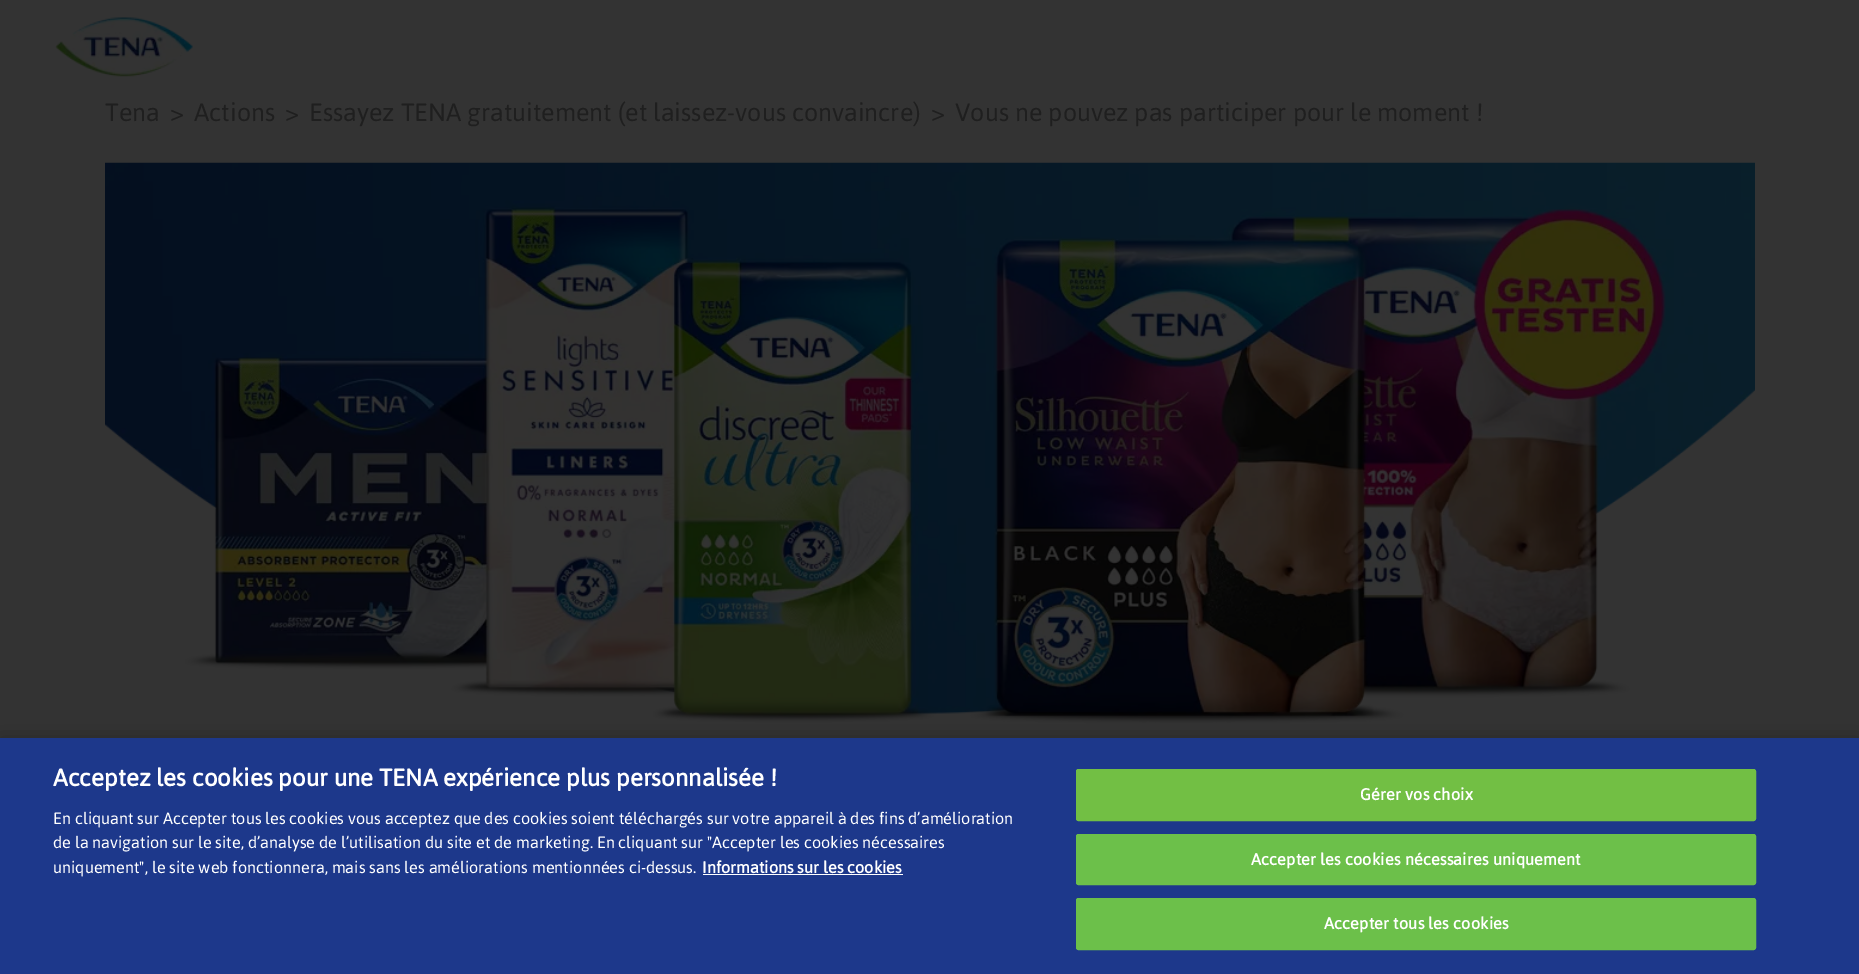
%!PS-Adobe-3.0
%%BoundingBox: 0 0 1859 974
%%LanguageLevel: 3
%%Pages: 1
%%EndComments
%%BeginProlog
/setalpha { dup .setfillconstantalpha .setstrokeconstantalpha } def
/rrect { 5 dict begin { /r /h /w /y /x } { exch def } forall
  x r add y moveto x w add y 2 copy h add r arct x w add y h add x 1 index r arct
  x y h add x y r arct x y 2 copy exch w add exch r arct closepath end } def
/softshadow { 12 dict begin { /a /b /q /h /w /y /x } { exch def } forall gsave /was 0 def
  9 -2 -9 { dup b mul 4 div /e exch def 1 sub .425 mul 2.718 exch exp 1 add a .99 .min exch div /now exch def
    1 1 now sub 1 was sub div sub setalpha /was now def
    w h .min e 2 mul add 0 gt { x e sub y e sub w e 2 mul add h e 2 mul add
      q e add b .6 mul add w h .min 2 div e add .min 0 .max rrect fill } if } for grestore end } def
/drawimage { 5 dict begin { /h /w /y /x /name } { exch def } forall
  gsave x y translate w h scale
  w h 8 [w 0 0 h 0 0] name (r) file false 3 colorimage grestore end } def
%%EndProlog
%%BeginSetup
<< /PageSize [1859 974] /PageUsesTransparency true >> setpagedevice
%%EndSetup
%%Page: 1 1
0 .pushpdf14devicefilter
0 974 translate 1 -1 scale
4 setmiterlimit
0.2 setgray
0 0 1859 974 rectfill
(images/1.raw) 55 17 138 60 drawimage
(images/2.raw) 105 162 1650 562 drawimage
0 setgray
0 738 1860 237 0 11 0.2 softshadow
0.114 0.22 0.545 setrgbcolor
0 738 1859 236 rectfill
1 setgray
703 874 200 1 rectfill
0.447 0.749 0.267 setrgbcolor
1076.5 769.5 679 51 2 rrect gsave fill grestore
stroke
0.424 0.753 0.29 setrgbcolor
1076.5 834.5 679 50 2 rrect gsave fill grestore
stroke
1076.5 898.5 679 51 2 rrect gsave fill grestore
stroke
/Asap-Regular [25 0 0 -25 0 0] selectfont
0.122 setgray
105 121 moveto (Tena) show
170 121 moveto (>) show
194 121 moveto (Actions) show
285 121 moveto (>) show
309 121 moveto (Essayez TENA gratuitement \(et laissez-vous convaincre\)) show
931 121 moveto (>) show
955 121 moveto (Vous ne pouvez pas participer pour le moment !) show
/Asap-Bold [24 0 0 -24 0 0] selectfont
1 setgray
53 786 moveto (Acceptez les cookies pour une TENA expérience plus personnalisée !) show
/Asap-Regular [16.25 0 0 -16.25 0 0] selectfont
53 824 moveto (En cliquant sur Accepter tous les cookies vous acceptez que des cookies soient téléchargés sur votre appareil à des fins d’amélioration) show
53 848 moveto (de la navigation sur le site, d’analyse de l’utilisation du site et de marketing. En cliquant sur "Accepter les cookies nécessaires) show
53 873 moveto (uniquement", le site web fonctionnera, mais sans les améliorations mentionnées ci-dessus.) show
/Asap-Bold [16.25 0 0 -16.25 0 0] selectfont
702 873 moveto (Informations sur les cookies) show
1360 800 moveto 0.15 0 (Gérer vos choix) ashow
1251 865 moveto 0.15 0 (Accepter les cookies nécessaires uniquement) ashow
1324 929 moveto 0.15 0 (Accepter tous les cookies) ashow
.poppdf14devicefilter showpage
%%EOF
